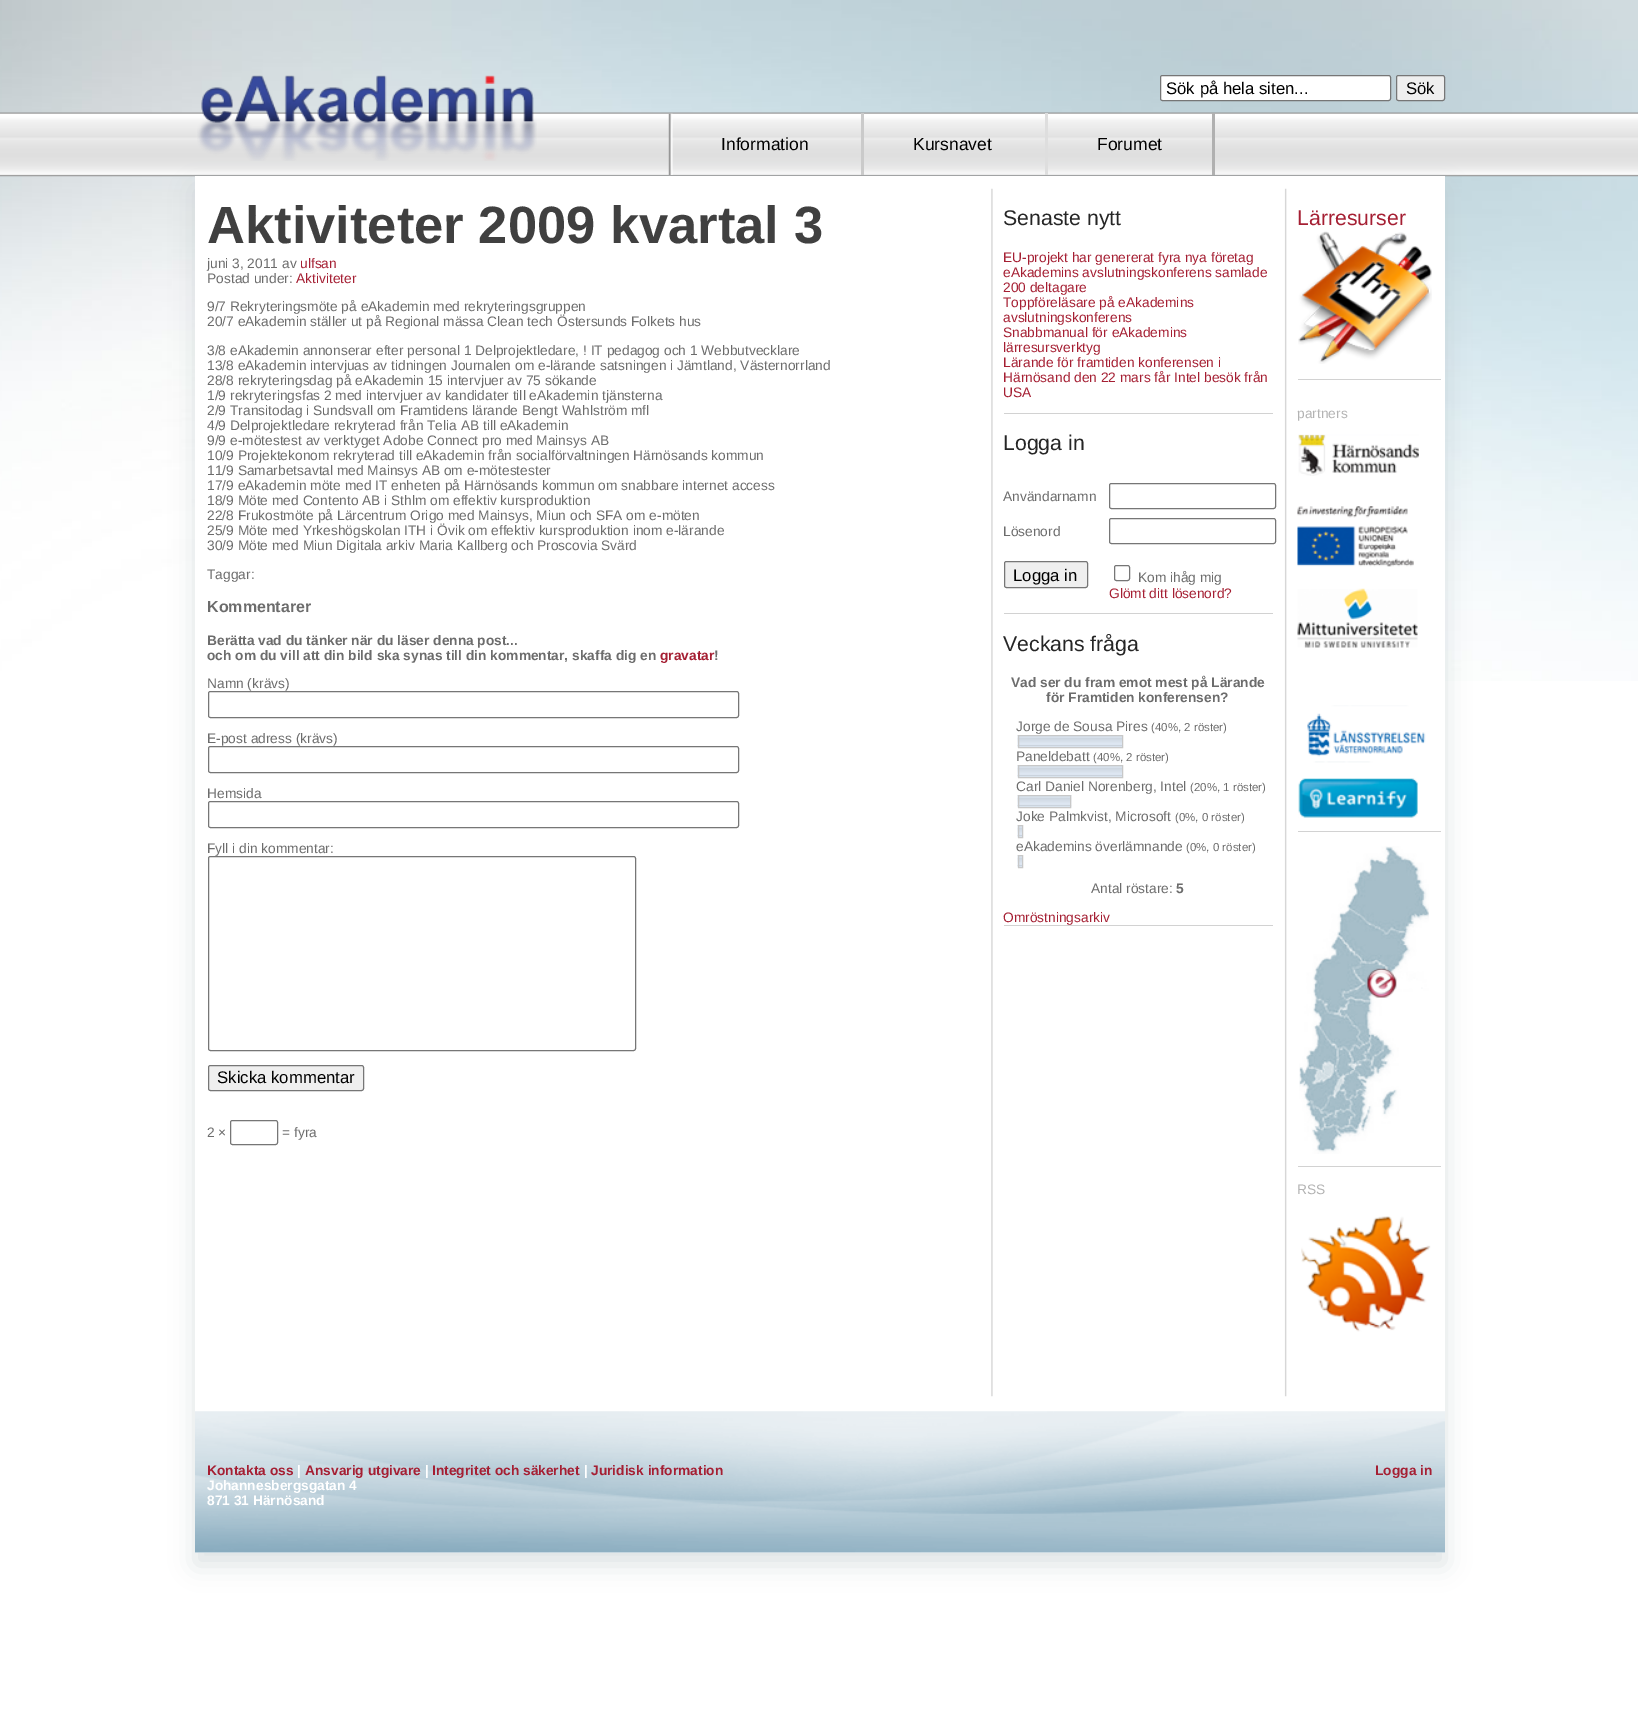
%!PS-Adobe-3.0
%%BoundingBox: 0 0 1638 1714
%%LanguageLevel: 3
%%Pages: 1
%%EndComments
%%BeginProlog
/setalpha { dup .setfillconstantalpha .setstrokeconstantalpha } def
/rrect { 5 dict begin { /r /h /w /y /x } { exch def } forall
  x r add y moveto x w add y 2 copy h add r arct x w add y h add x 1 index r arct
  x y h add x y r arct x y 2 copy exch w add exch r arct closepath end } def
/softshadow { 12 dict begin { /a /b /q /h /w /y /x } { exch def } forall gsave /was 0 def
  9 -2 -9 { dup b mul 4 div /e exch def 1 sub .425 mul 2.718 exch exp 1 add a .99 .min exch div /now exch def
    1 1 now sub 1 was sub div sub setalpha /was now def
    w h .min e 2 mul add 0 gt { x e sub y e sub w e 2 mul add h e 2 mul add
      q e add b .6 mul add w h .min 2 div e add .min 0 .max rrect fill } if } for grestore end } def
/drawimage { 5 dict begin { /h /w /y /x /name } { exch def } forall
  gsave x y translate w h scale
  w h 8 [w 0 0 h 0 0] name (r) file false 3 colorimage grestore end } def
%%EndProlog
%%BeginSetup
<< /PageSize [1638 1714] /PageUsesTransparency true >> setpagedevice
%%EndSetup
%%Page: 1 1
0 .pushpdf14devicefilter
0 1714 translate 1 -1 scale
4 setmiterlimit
1 setgray
0 0 1638 1714 rectfill
(images/1.raw) 0 0 1638 681 drawimage
1160.5 75.5 230 25 2 rrect gsave fill grestore
0.463 setgray
stroke
0.937 setgray
1396.5 75.5 48 25 2 rrect gsave fill grestore
0.463 setgray
stroke
(images/2.raw) 0 112 1638 65 drawimage
0.725 0.769 0.784 setrgbcolor
195 189 1250 1376 0 12.5 0.5 softshadow
(images/3.raw) 197 75 340 86 drawimage
0.69 setgray
1212 113 3 62 rectfill
(images/4.raw) 668 113 5 62 drawimage
0.792 setgray
861 113 3 62 rectfill
0.871 setgray
1045 113 3 62 rectfill
1 setgray
195 176 1250 1377 rectfill
(images/5.raw) 991 188 296 1209 drawimage
0.463 setgray
208.5 691.5 530 26 2 rrect stroke
208.5 746.5 530 26 2 rrect stroke
208.5 801.5 530 26 2 rrect stroke
208.5 856.5 427 194 2 rrect stroke
0.937 setgray
208.5 1065.5 155 25 2 rrect gsave fill grestore
0.463 setgray
stroke
230.5 1120.5 47 24 2 rrect stroke
0.824 setgray
1004 413 269 1 rectfill
1004 613 269 1 rectfill
0.463 setgray
1109.5 483.5 166 25 2 rrect stroke
1109.5 518.5 166 25 2 rrect stroke
0.937 setgray
1004.5 561.5 83 26 2 rrect gsave fill grestore
0.463 setgray
stroke
1114.5 565.5 15 15 2 rrect stroke
0.824 setgray
1004 925 269 1 rectfill
(images/6.raw) 1017 735 105 13 drawimage
0.784 setgray
1018.5 735.5 104 12 rectstroke
(images/7.raw) 1017 765 105 13 drawimage
1018.5 765.5 104 12 rectstroke
(images/8.raw) 1017 795 55 13 drawimage
1018.5 795.5 52 12 rectstroke
(images/9.raw) 1017 825 5 13 drawimage
1018.5 825.5 4 12 rectstroke
(images/10.raw) 1017 855 5 13 drawimage
1018.5 855.5 4 12 rectstroke
0.824 setgray
1298 379 143 1 rectfill
(images/11.raw) 1298 231 134 133 drawimage
(images/12.raw) 1298 434 121 42 drawimage
(images/13.raw) 1297 506 117 61 drawimage
(images/14.raw) 1297 588 121 60 drawimage
(images/15.raw) 1307 705 119 58 drawimage
1298 831 143 1 rectfill
(images/16.raw) 1298 778 120 40 drawimage
1298 1166 143 1 rectfill
(images/17.raw) 1299 846 130 308 drawimage
(images/18.raw) 1301 1216 130 116 drawimage
(images/19.raw) 195 1411 1250 142 drawimage
/LiberationSans-Regular [16.75 0 0 -16.75 0 0] selectfont
0 setgray
1166 94 moveto (Sök på hela siten...) show
1406 94 moveto (Sök) show
/LiberationSans-Regular [17.5 0 0 -17.5 0 0] selectfont
721 150 moveto (Information) show
913 150 moveto (Kursnavet) show
1097 150 moveto (Forumet) show
/LiberationSans-Bold [52.5 0 0 -52.5 0 0] selectfont
0.251 setgray
207 243 moveto (Aktiviteter 2009 kvartal 3) show
/LiberationSans-Regular [13.75 0 0 -13.75 0 0] selectfont
0.424 setgray
207 268 moveto (juni 3, 2011 av) show
0.647 0.122 0.2 setrgbcolor
300 268 moveto (ulfsan) show
0.424 setgray
207 283 moveto (Postad under:) show
0.647 0.122 0.2 setrgbcolor
296 283 moveto (Aktiviteter) show
0.424 setgray
207 311 moveto (9/7 Rekryteringsmöte på eAkademin med rekryteringsgruppen) show
207 326 moveto (20/7 eAkademin ställer ut på Regional mässa Clean tech Östersunds Folkets hus) show
207 355 moveto (3/8 eAkademin annonserar efter personal 1 Delprojektledare, ! IT pedagog och 1 Webbutvecklare) show
207 370 moveto (13/8 eAkademin intervjuas av tidningen Journalen om e-lärande satsningen i Jämtland, Västernorrland) show
207 385 moveto (28/8 rekryteringsdag på eAkademin 15 intervjuer av 75 sökande) show
207 400 moveto (1/9 rekryteringsfas 2 med intervjuer av kandidater till eAkademin tjänsterna) show
207 415 moveto (2/9 Transitodag i Sundsvall om Framtidens lärande Bengt Wahlström mfl) show
207 430 moveto (4/9 Delprojektledare rekryterad från Telia AB till eAkademin) show
207 445 moveto (9/9 e-mötestest av verktyget Adobe Connect pro med Mainsys AB) show
207 460 moveto (10/9 Projektekonom rekryterad till eAkademin från socialförvaltningen Härnösands kommun) show
207 475 moveto (11/9 Samarbetsavtal med Mainsys AB om e-mötestester) show
207 490 moveto (17/9 eAkademin möte med IT enheten på Härnösands kommun om snabbare internet access) show
207 505 moveto (18/9 Möte med Contento AB i Sthlm om effektiv kursproduktion) show
207 520 moveto (22/8 Frukostmöte på Lärcentrum Origo med Mainsys, Miun och SFA om e-möten) show
207 535 moveto (25/9 Möte med Yrkeshögskolan ITH i Övik om effektiv kursproduktion inom e-lärande) show
207 550 moveto (30/9 Möte med Miun Digitala arkiv Maria Kallberg och Proscovia Svärd) show
207 579 moveto (Taggar:) show
/LiberationSans-Bold [16 0 0 -16 0 0] selectfont
207 612 moveto (Kommentarer) show
/LiberationSans-Bold [13.75 0 0 -13.75 0 0] selectfont
207 645 moveto (Berätta vad du tänker när du läser denna post...) show
207 660 moveto (och om du vill att din bild ska synas till din kommentar, skaffa dig en) show
0.647 0.122 0.2 setrgbcolor
660 660 moveto (gravatar) show
0.424 setgray
714 660 moveto (!) show
/LiberationSans-Regular [13.75 0 0 -13.75 0 0] selectfont
207 688 moveto (Namn \(krävs\)) show
207 743 moveto (E-post adress \(krävs\)) show
207 798 moveto (Hemsida) show
207 853 moveto (Fyll i din kommentar:) show
/LiberationSans-Regular [16.75 0 0 -16.75 0 0] selectfont
0 setgray
217 1083 moveto (Skicka kommentar) show
/LiberationSans-Regular [13.75 0 0 -13.75 0 0] selectfont
0.424 setgray
207 1137 moveto (2 ×) show
282 1137 moveto (= fyra) show
/LiberationSans-Regular [21.25 0 0 -21.25 0 0] selectfont
0.149 setgray
1003 225 moveto (Senaste nytt) show
/LiberationSans-Regular [13.75 0 0 -13.75 0 0] selectfont
0.647 0.122 0.2 setrgbcolor
1003 262 moveto (EU-projekt har genererat fyra nya företag) show
1003 277 moveto (eAkademins avslutningskonferens samlade) show
1003 292 moveto (200 deltagare) show
1003 307 moveto (Toppföreläsare på eAkademins) show
1003 322 moveto (avslutningskonferens) show
1003 337 moveto (Snabbmanual för eAkademins) show
1003 352 moveto (lärresursverktyg) show
1003 367 moveto (Lärande för framtiden konferensen i) show
1003 382 moveto (Härnösand den 22 mars får Intel besök från) show
1003 397 moveto (USA) show
/LiberationSans-Regular [21.25 0 0 -21.25 0 0] selectfont
0.149 setgray
1003 450 moveto (Logga in) show
/LiberationSans-Regular [13.75 0 0 -13.75 0 0] selectfont
0.424 setgray
1003 501 moveto (Användarnamn) show
1003 536 moveto (Lösenord) show
/LiberationSans-Regular [16.75 0 0 -16.75 0 0] selectfont
0 setgray
1013 581 moveto (Logga in) show
/LiberationSans-Regular [13.75 0 0 -13.75 0 0] selectfont
0.424 setgray
1138 582 moveto (Kom ihåg mig) show
0.647 0.122 0.2 setrgbcolor
1109 598 moveto (Glömt ditt lösenord?) show
/LiberationSans-Regular [21.25 0 0 -21.25 0 0] selectfont
0.149 setgray
1003 651 moveto (Veckans fråga) show
/LiberationSans-Bold [13.75 0 0 -13.75 0 0] selectfont
0.424 setgray
1011 687 moveto (Vad ser du fram emot mest på Lärande) show
1046 702 moveto (för Framtiden konferensen?) show
/LiberationSans-Regular [13.75 0 0 -13.75 0 0] selectfont
1016 731 moveto (Jorge de Sousa Pires) show
/LiberationSans-Regular [11.5 0 0 -11.5 0 0] selectfont
1151 731 moveto (\(40%, 2 röster\)) show
/LiberationSans-Regular [13.75 0 0 -13.75 0 0] selectfont
1016 761 moveto (Paneldebatt) show
/LiberationSans-Regular [11.5 0 0 -11.5 0 0] selectfont
1093 761 moveto (\(40%, 2 röster\)) show
/LiberationSans-Regular [13.75 0 0 -13.75 0 0] selectfont
1016 791 moveto (Carl Daniel Norenberg, Intel) show
/LiberationSans-Regular [11.5 0 0 -11.5 0 0] selectfont
1190 791 moveto (\(20%, 1 röster\)) show
/LiberationSans-Regular [13.75 0 0 -13.75 0 0] selectfont
1016 821 moveto (Joke Palmkvist, Microsoft) show
/LiberationSans-Regular [11.5 0 0 -11.5 0 0] selectfont
1175 821 moveto (\(0%, 0 röster\)) show
/LiberationSans-Regular [13.75 0 0 -13.75 0 0] selectfont
1016 851 moveto (eAkademins överlämnande) show
/LiberationSans-Regular [11.5 0 0 -11.5 0 0] selectfont
1186 851 moveto (\(0%, 0 röster\)) show
/LiberationSans-Regular [13.75 0 0 -13.75 0 0] selectfont
1091 893 moveto (Antal röstare:) show
/LiberationSans-Bold [13.75 0 0 -13.75 0 0] selectfont
1176 893 moveto (5) show
/LiberationSans-Regular [13.75 0 0 -13.75 0 0] selectfont
0.647 0.122 0.2 setrgbcolor
1003 922 moveto (Omröstningsarkiv) show
/LiberationSans-Regular [21.25 0 0 -21.25 0 0] selectfont
1297 225 moveto (Lärresurser) show
/LiberationSans-Regular [13.75 0 0 -13.75 0 0] selectfont
0.702 setgray
1297 418 moveto (partners) show
1297 1194 moveto (RSS) show
/LiberationSans-Bold [13.75 0 0 -13.75 0 0] selectfont
0.647 0.122 0.2 setrgbcolor
207 1475 moveto (Kontakta oss) show
1 setgray
297 1475 moveto (|) show
0.647 0.122 0.2 setrgbcolor
305 1475 moveto (Ansvarig utgivare) show
1 setgray
425 1475 moveto (|) show
0.647 0.122 0.2 setrgbcolor
432 1475 moveto (Integritet och säkerhet) show
1 setgray
584 1475 moveto (|) show
0.647 0.122 0.2 setrgbcolor
591 1475 moveto (Juridisk information) show
1 setgray
207 1490 moveto (Johannesbergsgatan 4) show
207 1505 moveto (871 31 Härnösand) show
0.647 0.122 0.2 setrgbcolor
1375 1475 moveto (Logga in) show
.poppdf14devicefilter showpage
%%EOF
